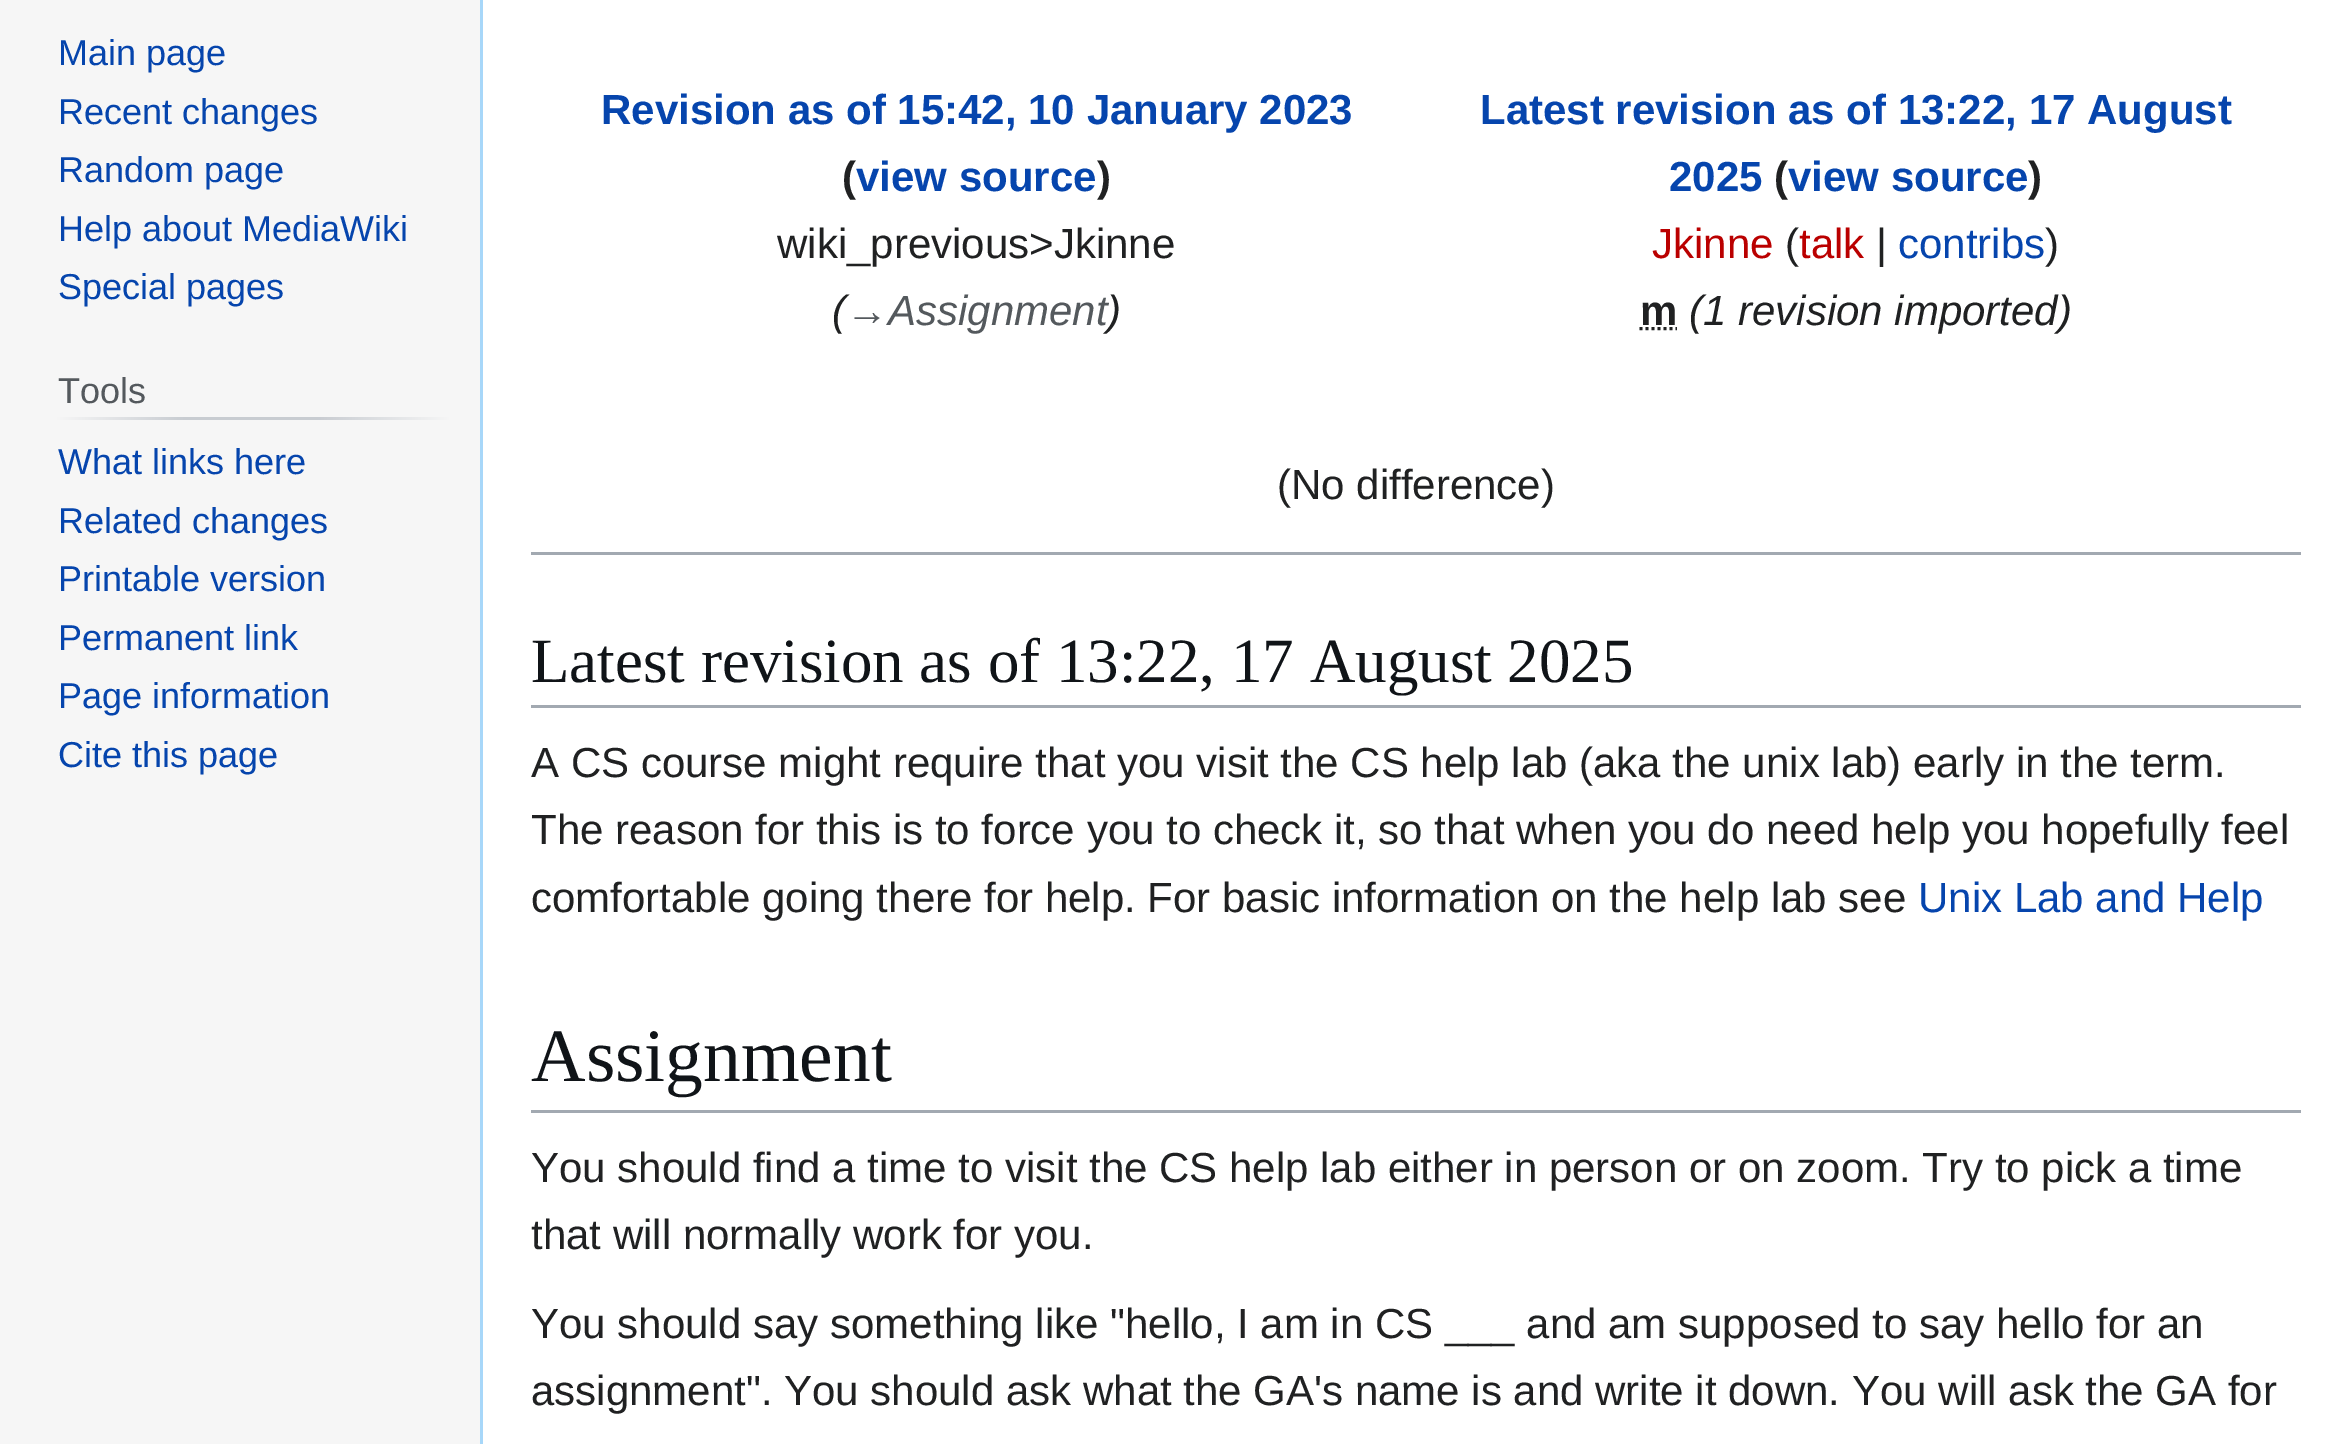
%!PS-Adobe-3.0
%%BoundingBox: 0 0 2349 1444
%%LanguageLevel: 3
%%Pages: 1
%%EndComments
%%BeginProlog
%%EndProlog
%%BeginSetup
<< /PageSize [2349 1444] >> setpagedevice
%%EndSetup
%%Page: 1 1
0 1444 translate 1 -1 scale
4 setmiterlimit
0.965 setgray
0 0 2349 1444 rectfill
gsave newpath 57 417 moveto 450 417 lineto 450 420 lineto 57 420 lineto closepath clip newpath
<< /ShadingType 2 /ColorSpace /DeviceRGB /Coords [57 419 450 419] /Extend [true true] /Function << /FunctionType 3 /Domain [0 1] /Functions [<< /FunctionType 2 /Domain [0 1] /C0 [0.965 0.965 0.965] /C1 [0.784 0.8 0.82] /N 1 >> << /FunctionType 2 /Domain [0 1] /C0 [0.784 0.8 0.82] /C1 [0.784 0.8 0.82] /N 1 >> << /FunctionType 2 /Domain [0 1] /C0 [0.784 0.8 0.82] /C1 [0.965 0.965 0.965] /N 1 >>] /Bounds [0.33 0.66] /Encode [0 1 0 1 0 1] >> >> shfill grestore
1 setgray
483 0 1866 1444 rectfill
0.655 0.843 0.976 setrgbcolor
480 0 3 1444 rectfill
0.125 0.129 0.133 setrgbcolor
3 setlinewidth
[3 3] 0 setdash
newpath 1639.5 328.5 moveto 1677 328.5 lineto stroke
0.635 0.663 0.694 setrgbcolor
531 552 1770 3 rectfill
531 705 1770 3 rectfill
531 1110 1770 3 rectfill
/LiberationSans-Regular [36 0 0 -36 0 0] selectfont
0.024 0.271 0.678 setrgbcolor
58 65 moveto (Main page) show
58 124 moveto (Recent changes) show
58 182 moveto (Random page) show
58 241 moveto (Help about MediaWiki) show
58 299 moveto (Special pages) show
0.329 0.349 0.365 setrgbcolor
58 403 moveto (Tools) show
0.024 0.271 0.678 setrgbcolor
58 474 moveto (What links here) show
58 533 moveto (Related changes) show
58 591 moveto (Printable version) show
58 650 moveto (Permanent link) show
58 708 moveto (Page information) show
58 767 moveto (Cite this page) show
/LiberationSans-Bold [42 0 0 -42 0 0] selectfont
601 124 moveto (Revision as of 15:42, 10 January 2023) show
0.125 0.129 0.133 setrgbcolor
842 191 moveto (\() show
0.024 0.271 0.678 setrgbcolor
856 191 moveto (view source) show
0.125 0.129 0.133 setrgbcolor
1097 191 moveto (\)) show
/LiberationSans-Regular [42 0 0 -42 0 0] selectfont
777 258 moveto (wiki_previous>Jkinne) show
/LiberationSans-Italic [42 0 0 -42 0 0] selectfont
832 325 moveto (\() show
0.329 0.349 0.365 setrgbcolor
846 325 moveto (→Assignment) show
0.125 0.129 0.133 setrgbcolor
1107 325 moveto (\)) show
/LiberationSans-Bold [42 0 0 -42 0 0] selectfont
0.024 0.271 0.678 setrgbcolor
1480 124 moveto (Latest revision as of 13:22, 17 August) show
1669 191 moveto (2025) show
0.125 0.129 0.133 setrgbcolor
1774 191 moveto (\() show
0.024 0.271 0.678 setrgbcolor
1788 191 moveto (view source) show
0.125 0.129 0.133 setrgbcolor
2028 191 moveto (\)) show
/LiberationSans-Regular [42 0 0 -42 0 0] selectfont
0.729 0 0 setrgbcolor
1652 258 moveto (Jkinne) show
0.125 0.129 0.133 setrgbcolor
1785 258 moveto (\() show
0.729 0 0 setrgbcolor
1799 258 moveto (talk) show
0.125 0.129 0.133 setrgbcolor
1876 258 moveto (|) show
0.024 0.271 0.678 setrgbcolor
1898 258 moveto (contribs) show
0.125 0.129 0.133 setrgbcolor
2045 258 moveto (\)) show
/LiberationSans-Bold [42 0 0 -42 0 0] selectfont
1640 325 moveto (m) show
/LiberationSans-Italic [42 0 0 -42 0 0] selectfont
1689 325 moveto (\(1 revision imported\)) show
/LiberationSans-Regular [42 0 0 -42 0 0] selectfont
1277 499 moveto (\(No difference\)) show
/LiberationSerif-Regular [63 0 0 -63 0 0] selectfont
0.063 0.078 0.094 setrgbcolor
531 682 moveto (Latest revision as of 13:22, 17 August 2025) show
/LiberationSans-Regular [42 0 0 -42 0 0] selectfont
0.125 0.129 0.133 setrgbcolor
531 777 moveto (A CS course might require that you visit the CS help lab \(aka the unix lab\) early in the term.) show
531 844 moveto (The reason for this is to force you to check it, so that when you do need help you hopefully feel) show
531 912 moveto (comfortable going there for help. For basic information on the help lab see) show
0.024 0.271 0.678 setrgbcolor
1918 912 moveto (Unix Lab and Help) show
/LiberationSerif-Regular [75.5 0 0 -75.5 0 0] selectfont
0.063 0.078 0.094 setrgbcolor
531 1081 moveto (Assignment) show
/LiberationSans-Regular [42 0 0 -42 0 0] selectfont
0.125 0.129 0.133 setrgbcolor
531 1182 moveto (You should find a time to visit the CS help lab either in person or on zoom. Try to pick a time) show
531 1249 moveto (that will normally work for you.) show
531 1338 moveto (You should say something like "hello, I am in CS ___ and am supposed to say hello for an) show
531 1405 moveto (assignment". You should ask what the GA's name is and write it down. You will ask the GA for) show
showpage
%%EOF
